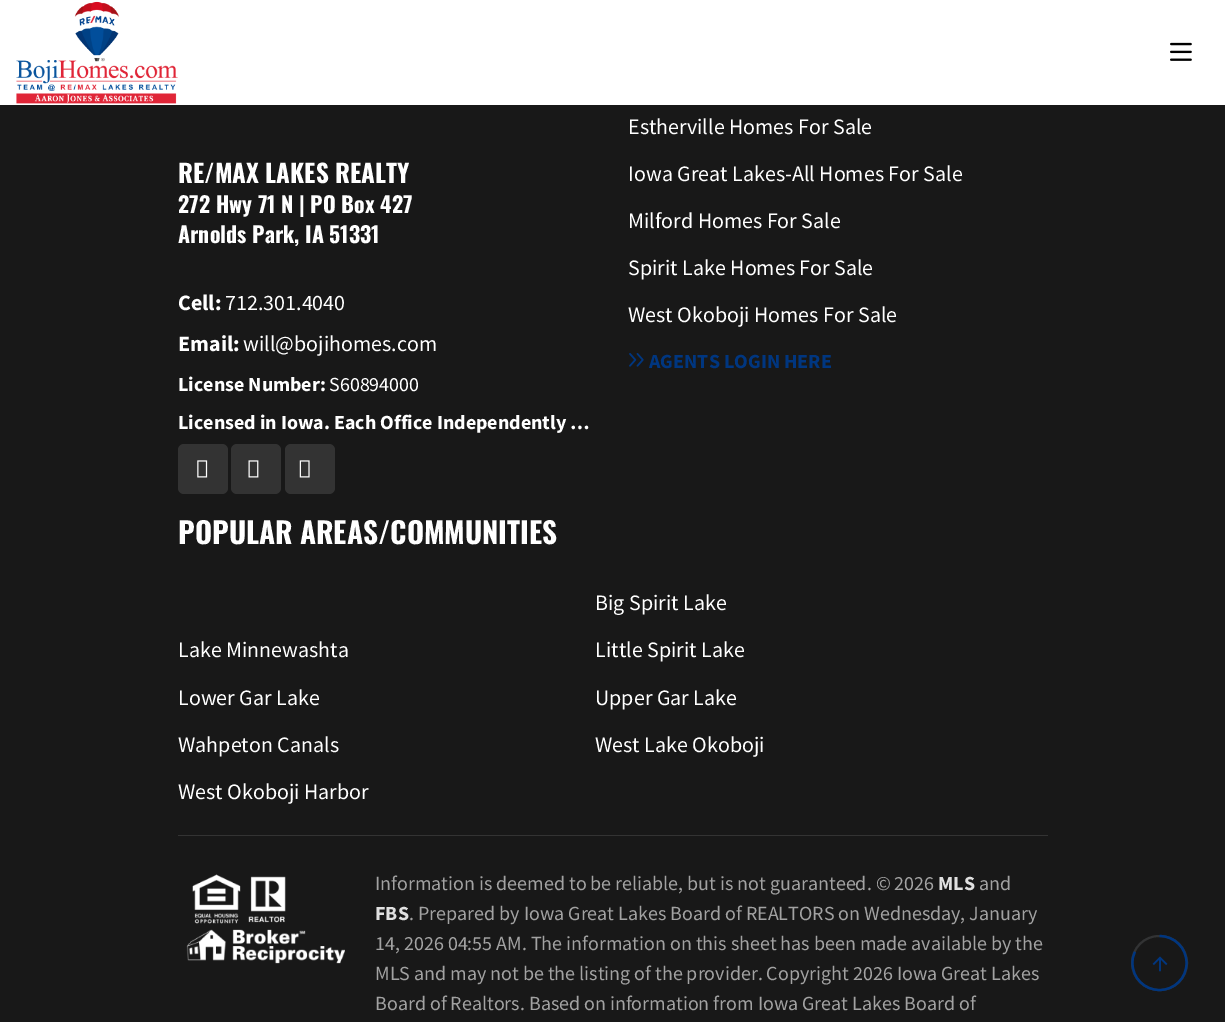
%!PS-Adobe-3.0
%%BoundingBox: 0 0 1225 1022
%%LanguageLevel: 3
%%Pages: 1
%%EndComments
%%BeginProlog
/rrect { 5 dict begin { /r /h /w /y /x } { exch def } forall
  x r add y moveto x w add y 2 copy h add r arct x w add y h add x 1 index r arct
  x y h add x y r arct x y 2 copy exch w add exch r arct closepath end } def
/drawimage { 5 dict begin { /h /w /y /x /name } { exch def } forall
  gsave x y translate w h scale
  w h 8 [w 0 0 h 0 0] name (r) file false 3 colorimage grestore end } def
%%EndProlog
%%BeginSetup
<< /PageSize [1225 1022] >> setpagedevice
%%EndSetup
%%Page: 1 1
0 1022 translate 1 -1 scale
4 setmiterlimit
0.094 setgray
0 0 1225 1022 rectfill
1 setgray
0 0 1225 105 rectfill
(images/1.raw) 16 1 162 103 drawimage
(images/2.raw) 1170 42 22 19 drawimage
0.2 setgray
178 444 50 50 6 rrect fill
(images/3.raw) 197 460 11 18 drawimage
231 444 50 50 6 rrect fill
(images/4.raw) 248 460 11 18 drawimage
285 444 50 50 6 rrect fill
(images/5.raw) 299 460 11 18 drawimage
(images/6.raw) 629 353 15 14 drawimage
178 835 870 1 rectfill
(images/7.raw) 186 874 159 90 drawimage
0.196 0.2 0.204 setrgbcolor
2 setlinewidth
1132 936 55 54 27 rrect stroke
0 0.212 0.502 setrgbcolor
2.2 setlinewidth
newpath 1159.5 936 moveto 1174.5 936 1186.5 948 1186.5 963 curveto 1186.5 978 1174.5 990 1159.5 990 curveto 1144.5 990 1132.5 978 1132.5 963 curveto 1132.5 959 1133 955.5 1135 952 curveto stroke
(images/8.raw) 1152 956 16 16 drawimage
/Oswald-Bold [25 0 0 -25 0 0] selectfont
1 setgray
178 183 moveto (RE/MAX LAKES REALTY) show
/Oswald-Bold [21.9 0 0 -21.9 0 0] selectfont
178 213 moveto (272 Hwy 71 N | PO Box 427) show
178 243 moveto (Arnolds Park, IA 51331) show
/SourceSansPro-Bold [22 0 0 -22 0 0] selectfont
178 310 moveto (Cell:) show
/SourceSansPro-Regular [22 0 0 -22 0 0] selectfont
225 310 moveto (712.301.4040) show
/SourceSansPro-Bold [22 0 0 -22 0 0] selectfont
178 351 moveto (Email:) show
/SourceSansPro-Regular [22 0 0 -22 0 0] selectfont
243 351 moveto (will@bojihomes.com) show
/SourceSansPro-Bold [20 0 0 -20 0 0] selectfont
178 391 moveto (License Number:) show
/SourceSansPro-Regular [20 0 0 -20 0 0] selectfont
329 391 moveto (S60894000) show
/SourceSansPro-Bold [20 0 0 -20 0 0] selectfont
178 429 moveto (Licensed in Iowa. Each Office Independently …) show
/SourceSansPro-Regular [22 0 0 -22 0 0] selectfont
628 134 moveto (Estherville Homes For Sale) show
628 181 moveto (Iowa Great Lakes-All Homes For Sale) show
628 228 moveto (Milford Homes For Sale) show
628 275 moveto (Spirit Lake Homes For Sale) show
628 322 moveto (West Okoboji Homes For Sale) show
/SourceSansPro-Bold [20 0 0 -20 0 0] selectfont
0 0.212 0.502 setrgbcolor
649 368 moveto (AGENTS LOGIN HERE) show
/Oswald-Bold [29.25 0 0 -29.25 0 0] selectfont
1 setgray
178 544 moveto (POPULAR AREAS/COMMUNITIES) show
/SourceSansPro-Regular [22 0 0 -22 0 0] selectfont
595 610 moveto (Big Spirit Lake) show
178 657 moveto (Lake Minnewashta) show
595 657 moveto (Little Spirit Lake) show
178 705 moveto (Lower Gar Lake) show
595 705 moveto (Upper Gar Lake) show
178 752 moveto (Wahpeton Canals) show
595 752 moveto (West Lake Okoboji) show
178 799 moveto (West Okoboji Harbor) show
/SourceSansPro-Regular [20 0 0 -20 0 0] selectfont
0.635 setgray
375 890 moveto (Information is deemed to be reliable, but is not guaranteed. © 2026) show
/SourceSansPro-Bold [20 0 0 -20 0 0] selectfont
0.878 setgray
938 890 moveto (MLS) show
/SourceSansPro-Regular [20 0 0 -20 0 0] selectfont
0.635 setgray
979 890 moveto (and) show
/SourceSansPro-Bold [20 0 0 -20 0 0] selectfont
0.878 setgray
375 920 moveto (FBS) show
/SourceSansPro-Regular [20 0 0 -20 0 0] selectfont
0.635 setgray
409 920 moveto (. Prepared by Iowa Great Lakes Board of REALTORS on Wednesday, January) show
375 950 moveto (14, 2026 04:55 AM. The information on this sheet has been made available by the) show
375 980 moveto (MLS and may not be the listing of the provider. Copyright 2026 Iowa Great Lakes) show
375 1010 moveto (Board of Realtors. Based on information from Iowa Great Lakes Board of) show
showpage
%%EOF
